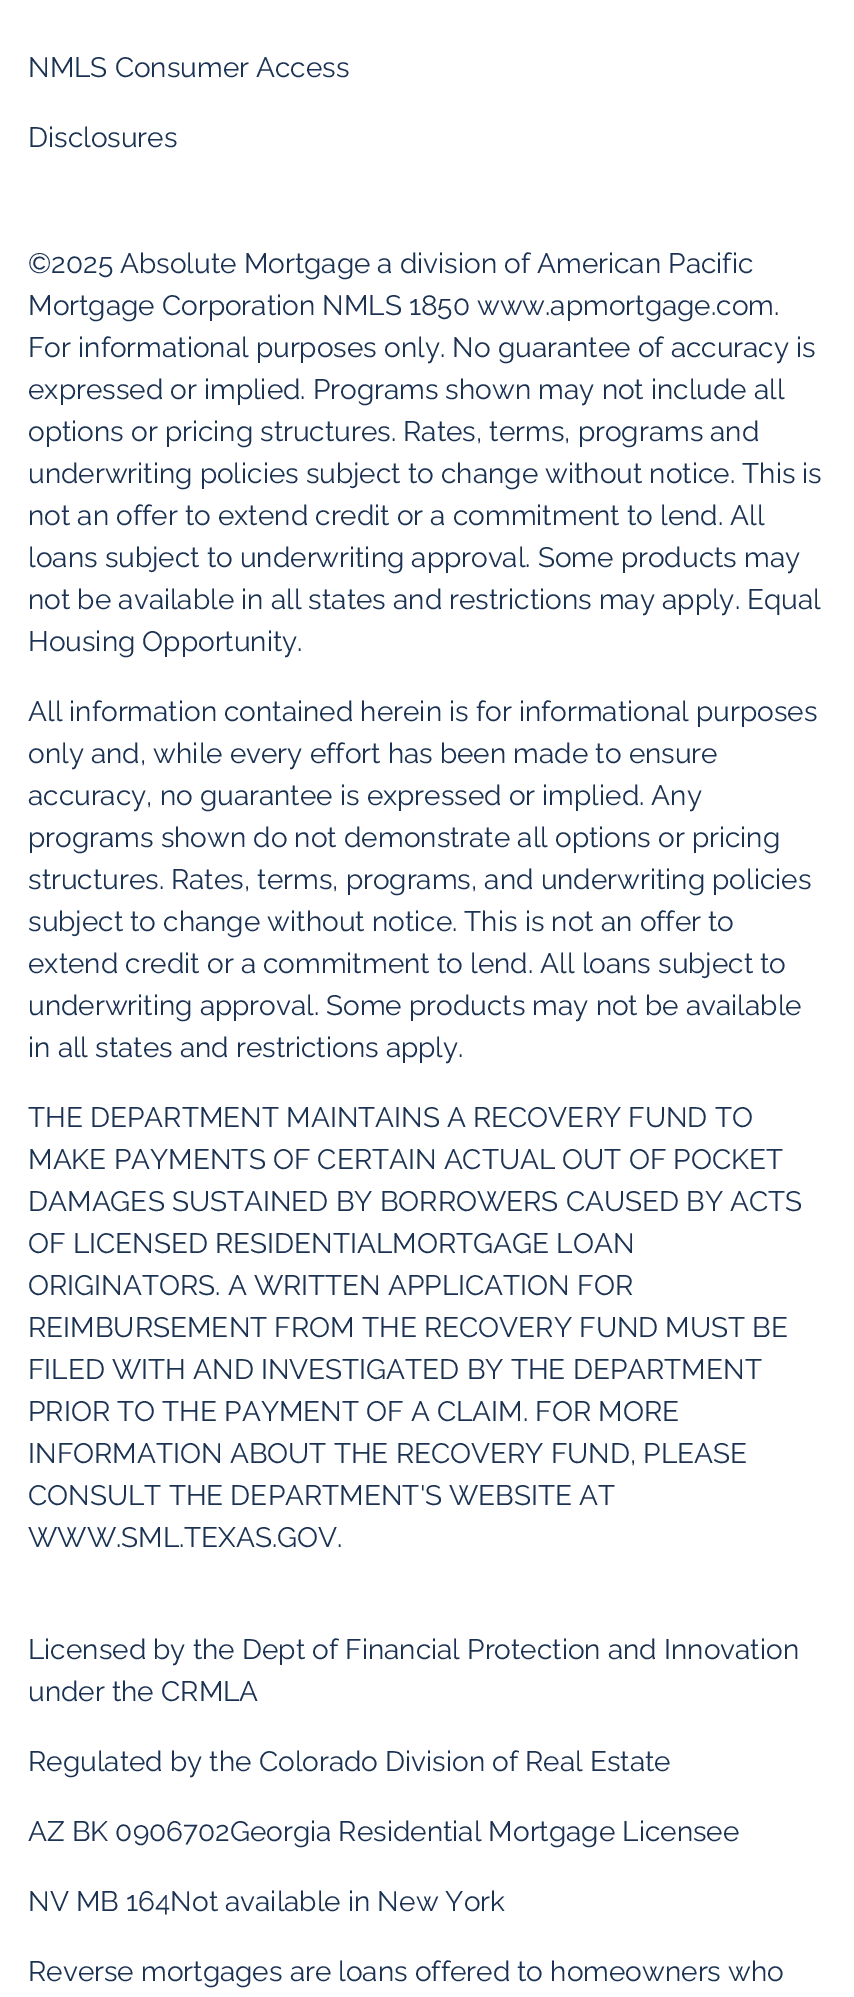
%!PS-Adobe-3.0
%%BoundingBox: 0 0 854 1997
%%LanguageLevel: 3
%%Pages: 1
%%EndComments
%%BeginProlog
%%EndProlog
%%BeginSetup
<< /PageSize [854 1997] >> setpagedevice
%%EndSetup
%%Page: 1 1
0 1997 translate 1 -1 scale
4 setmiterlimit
1 setgray
0 0 854 1997 rectfill
/Raleway-Regular [28 0 0 -28 0 0] selectfont
0.106 0.196 0.325 setrgbcolor
28 77 moveto (NMLS Consumer Access) show
28 147 moveto (Disclosures) show
28 273 moveto (©2025 Absolute Mortgage a division of American Pacific) show
28 315 moveto (Mortgage Corporation NMLS 1850 www.apmortgage.com.) show
28 357 moveto (For informational purposes only. No guarantee of accuracy is) show
28 399 moveto (expressed or implied. Programs shown may not include all) show
28 441 moveto (options or pricing structures. Rates, terms, programs and) show
28 483 moveto (underwriting policies subject to change without notice. This is) show
28 525 moveto (not an offer to extend credit or a commitment to lend. All) show
28 567 moveto (loans subject to underwriting approval. Some products may) show
28 609 moveto (not be available in all states and restrictions may apply. Equal) show
28 651 moveto (Housing Opportunity.) show
28 721 moveto (All information contained herein is for informational purposes) show
28 763 moveto (only and, while every effort has been made to ensure) show
28 805 moveto (accuracy, no guarantee is expressed or implied. Any) show
28 847 moveto (programs shown do not demonstrate all options or pricing) show
28 889 moveto (structures. Rates, terms, programs, and underwriting policies) show
28 931 moveto (subject to change without notice. This is not an offer to) show
28 973 moveto (extend credit or a commitment to lend. All loans subject to) show
28 1015 moveto (underwriting approval. Some products may not be available) show
28 1057 moveto (in all states and restrictions apply.) show
28 1127 moveto (THE DEPARTMENT MAINTAINS A RECOVERY FUND TO) show
28 1169 moveto (MAKE PAYMENTS OF CERTAIN ACTUAL OUT OF POCKET) show
28 1211 moveto (DAMAGES SUSTAINED BY BORROWERS CAUSED BY ACTS) show
28 1253 moveto (OF LICENSED RESIDENTIALMORTGAGE LOAN) show
28 1295 moveto (ORIGINATORS. A WRITTEN APPLICATION FOR) show
28 1337 moveto (REIMBURSEMENT FROM THE RECOVERY FUND MUST BE) show
28 1379 moveto (FILED WITH AND INVESTIGATED BY THE DEPARTMENT) show
28 1421 moveto (PRIOR TO THE PAYMENT OF A CLAIM. FOR MORE) show
28 1463 moveto (INFORMATION ABOUT THE RECOVERY FUND, PLEASE) show
28 1505 moveto (CONSULT THE DEPARTMENT'S WEBSITE AT) show
28 1547 moveto (WWW.SML.TEXAS.GOV.) show
28 1659 moveto (Licensed by the Dept of Financial Protection and Innovation) show
28 1701 moveto (under the CRMLA) show
28 1771 moveto (Regulated by the Colorado Division of Real Estate) show
28 1841 moveto (AZ BK 0906702Georgia Residential Mortgage Licensee) show
28 1911 moveto (NV MB 164Not available in New York) show
28 1981 moveto (Reverse mortgages are loans offered to homeowners who) show
showpage
%%EOF
